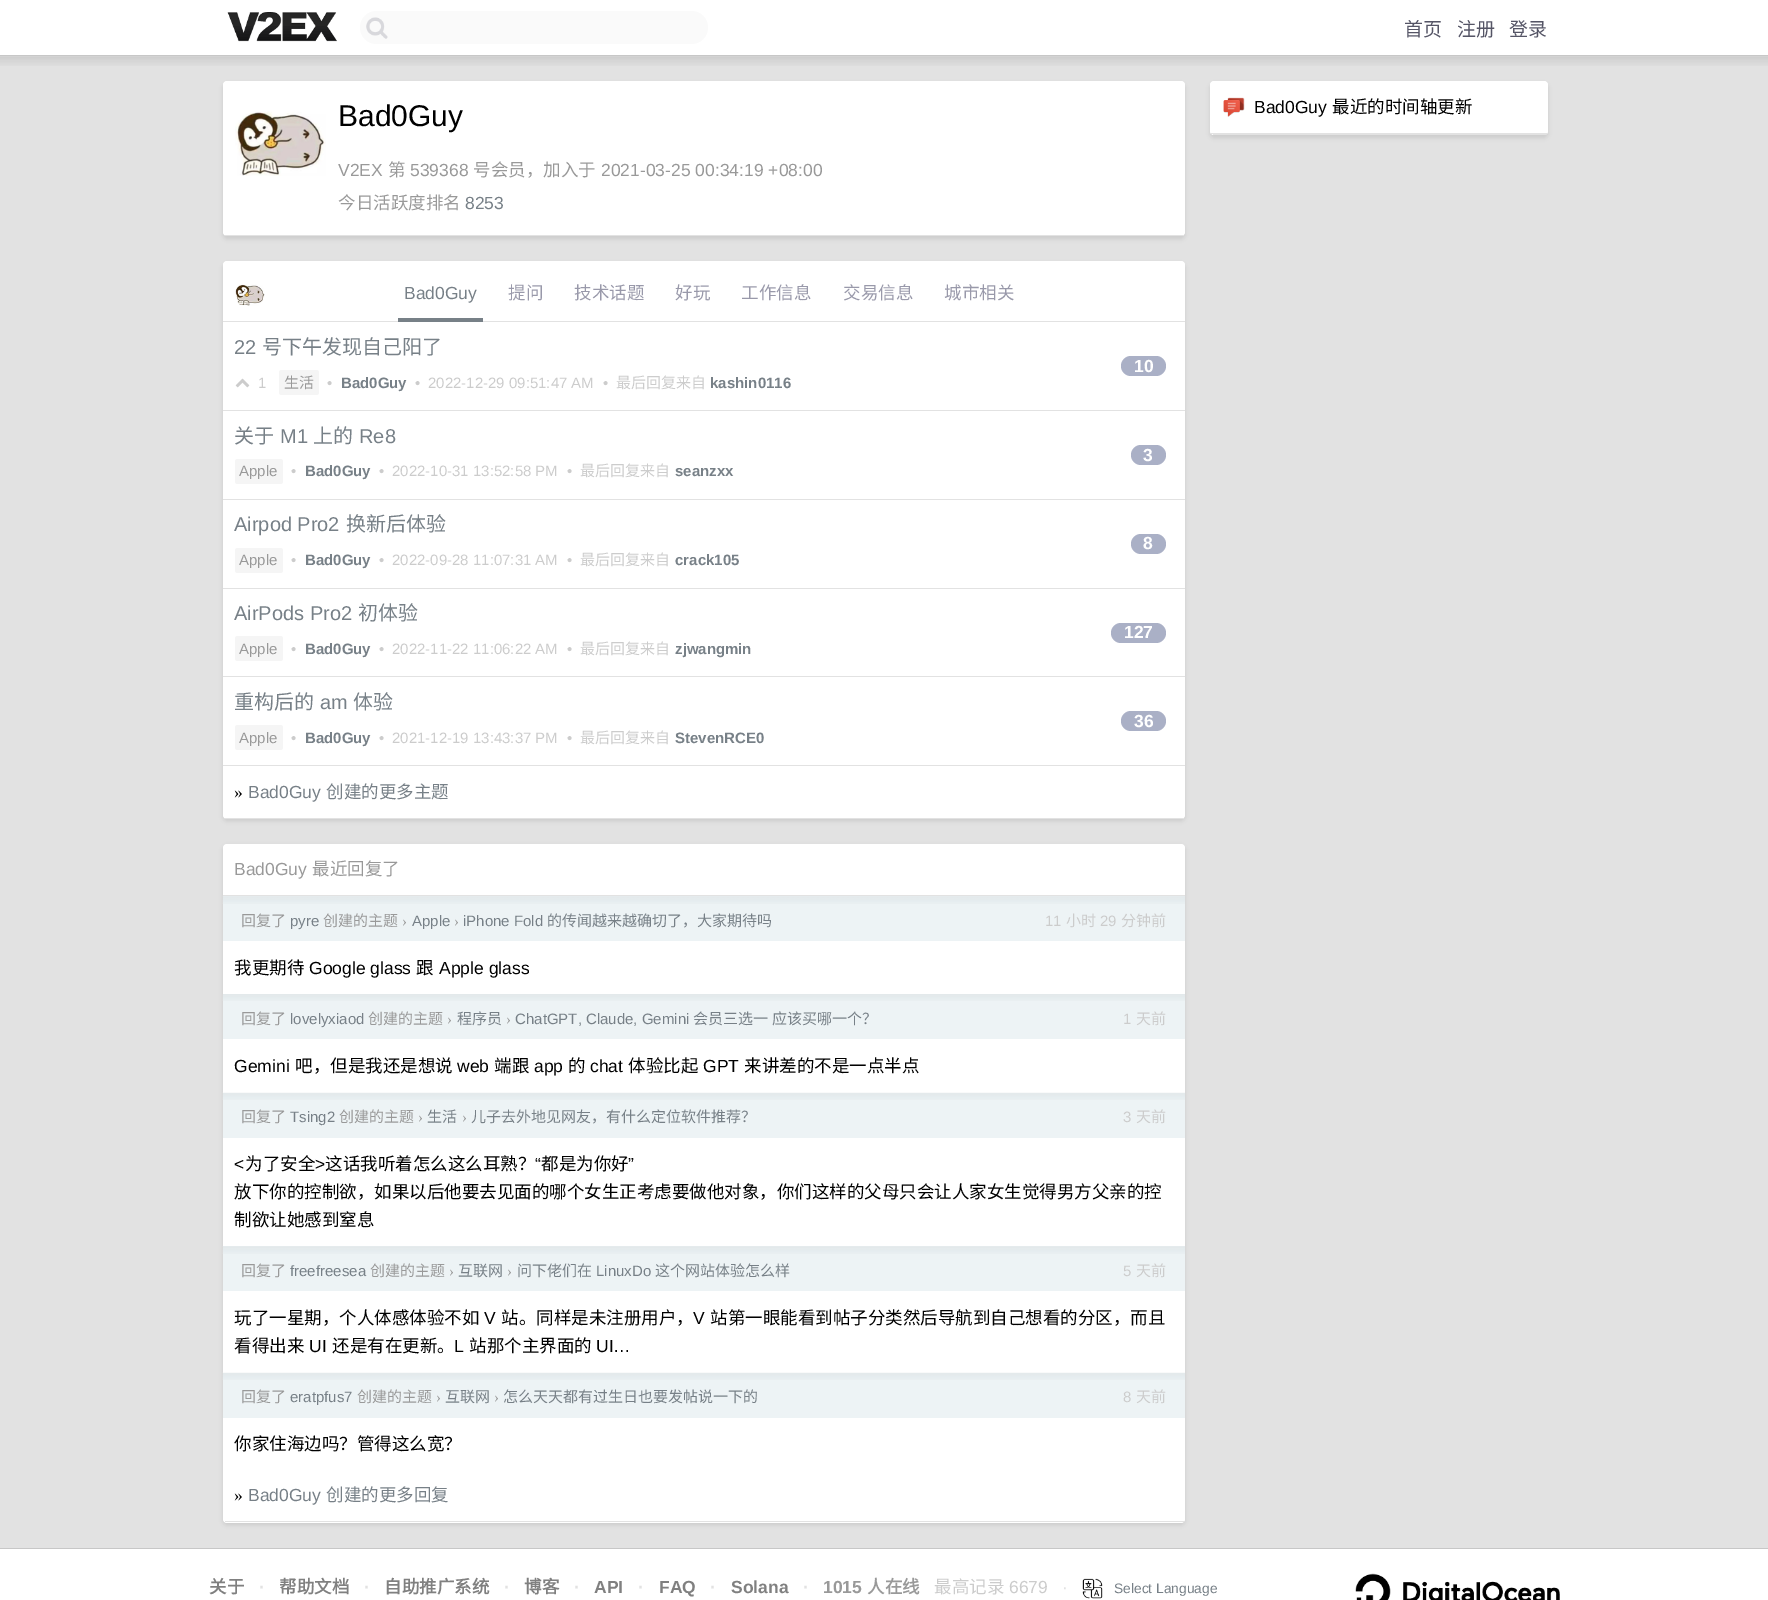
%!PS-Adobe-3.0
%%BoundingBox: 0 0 1768 1600
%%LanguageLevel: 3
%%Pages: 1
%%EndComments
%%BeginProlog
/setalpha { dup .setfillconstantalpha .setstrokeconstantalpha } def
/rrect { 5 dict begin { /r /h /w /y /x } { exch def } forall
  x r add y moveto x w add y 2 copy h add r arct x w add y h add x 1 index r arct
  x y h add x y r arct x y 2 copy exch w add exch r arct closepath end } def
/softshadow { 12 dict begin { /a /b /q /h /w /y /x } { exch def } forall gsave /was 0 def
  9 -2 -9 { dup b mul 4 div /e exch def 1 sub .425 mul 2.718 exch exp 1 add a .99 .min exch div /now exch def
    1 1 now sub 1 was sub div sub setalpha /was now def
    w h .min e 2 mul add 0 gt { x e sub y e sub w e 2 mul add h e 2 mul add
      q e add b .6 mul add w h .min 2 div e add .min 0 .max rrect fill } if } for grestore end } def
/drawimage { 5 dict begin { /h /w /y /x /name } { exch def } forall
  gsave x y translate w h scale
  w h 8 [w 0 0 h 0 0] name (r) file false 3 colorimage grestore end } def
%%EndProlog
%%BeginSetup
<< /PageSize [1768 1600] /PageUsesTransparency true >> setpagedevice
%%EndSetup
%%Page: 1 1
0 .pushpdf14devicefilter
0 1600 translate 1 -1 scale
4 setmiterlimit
1 setgray
0 0 1768 1600 rectfill
0.78 setgray
0 55 1768 1 rectfill
(images/1.raw) 227 12 110 30 drawimage
0.98 setgray
360 11 348 33 16.5 rrect fill
(images/2.raw) 366 17 22 22 drawimage
0.886 setgray
0 56 1768 1492 rectfill
(images/3.raw) 0 56 1768 10 drawimage
0 setgray
223 84 962 155 4 2 0.1 softshadow
1 setgray
223 81 962 155 4 rrect fill
0.886 setgray
225 235 959 1 rectfill
(images/4.raw) 235 111 91 65 drawimage
0 setgray
223 264 962 557 4 2 0.1 softshadow
1 setgray
223 261 962 558 4 rrect fill
0.886 setgray
225 818 959 1 rectfill
223 321 962 1 rectfill
(images/5.raw) 235 284 30 22 drawimage
0.467 0.502 0.529 setrgbcolor
398 318 85 4 rectfill
0.886 setgray
223 410 962 1 rectfill
(images/6.raw) 235 378 15 10 drawimage
0.961 setgray
279 370 40 25 2.5 rrect fill
0.667 0.69 0.776 setrgbcolor
1121 356 45 20 10 rrect fill
0.886 setgray
223 499 962 1 rectfill
0.961 setgray
235 459 48 25 2.5 rrect fill
0.667 0.69 0.776 setrgbcolor
1131 445 35 20 10 rrect fill
0.886 setgray
223 588 962 1 rectfill
0.961 setgray
235 548 48 25 2.5 rrect fill
0.667 0.69 0.776 setrgbcolor
1131 534 35 20 10 rrect fill
0.886 setgray
223 676 962 1 rectfill
0.961 setgray
235 636 48 25 2.5 rrect fill
0.667 0.69 0.776 setrgbcolor
1111 623 55 20 10 rrect fill
0.886 setgray
223 765 962 1 rectfill
0.961 setgray
235 725 48 25 2.5 rrect fill
0.667 0.69 0.776 setrgbcolor
1121 711 45 20 10 rrect fill
0 setgray
223 846 962 679 4 2 0.1 softshadow
1 setgray
223 844 962 679 4 rrect fill
0.886 setgray
225 1521 959 1 rectfill
223 895 962 1 rectfill
0.929 0.953 0.961 setrgbcolor
223 896 962 45 rectfill
(images/7.raw) 222 896 963 8 drawimage
223 994 962 45 rectfill
(images/8.raw) 222 994 963 7 drawimage
223 1093 962 45 rectfill
(images/9.raw) 222 1092 963 8 drawimage
223 1246 962 45 rectfill
(images/10.raw) 222 1246 963 8 drawimage
223 1373 962 45 rectfill
(images/11.raw) 222 1372 963 8 drawimage
0 setgray
1210 84 338 54 4 2 0.1 softshadow
1 setgray
1210 81 338 54 4 rrect fill
0.886 setgray
1213 134 333 1 rectfill
1210 133 338 1 rectfill
(images/12.raw) 1223 97 22 20 drawimage
0.78 setgray
0 1548 1768 1 rectfill
(images/13.raw) 1082 1578 21 21 drawimage
(images/14.raw) 1355 1573 205 27 drawimage
/NotoSansCJKSC-Regular [19 0 0 -19 0 0] selectfont
0.333 0.333 0.4 setrgbcolor
1404 36 moveto (首页) show
1457 36 moveto (注册) show
1509 36 moveto (登录) show
/LiberationSans-Regular [30 0 0 -30 0 0] selectfont
0 setgray
338 126 moveto (Bad0Guy) show
/LiberationSans-Regular [17.5 0 0 -17.5 0 0] selectfont
0.6 setgray
338 176 moveto (V2EX) show
/NotoSansCJKSC-Regular [17.5 0 0 -17.5 0 0] selectfont
388 176 moveto (第) show
/LiberationSans-Regular [17.5 0 0 -17.5 0 0] selectfont
410 176 moveto (539368) show
/NotoSansCJKSC-Regular [17.5 0 0 -17.5 0 0] selectfont
473 176 moveto (号会员，加入于) show
/LiberationSans-Regular [17.5 0 0 -17.5 0 0] selectfont
601 176 moveto (2021-03-25 00:34:19 +08:00) show
/NotoSansCJKSC-Regular [17.5 0 0 -17.5 0 0] selectfont
338 209 moveto (今日活跃度排名) show
/LiberationSans-Regular [17.5 0 0 -17.5 0 0] selectfont
0.467 0.502 0.529 setrgbcolor
465 209 moveto (8253) show
404 299 moveto (Bad0Guy) show
/NotoSansCJKSC-Regular [17.5 0 0 -17.5 0 0] selectfont
0.6 0.6 0.667 setrgbcolor
508 299 moveto (提问) show
574 299 moveto (技术话题) show
675 299 moveto (好玩) show
741 299 moveto (工作信息) show
843 299 moveto (交易信息) show
944 299 moveto (城市相关) show
/LiberationSans-Regular [20 0 0 -20 0 0] selectfont
0.467 0.502 0.529 setrgbcolor
234 354 moveto (22) show
/NotoSansCJKSC-Regular [20 0 0 -20 0 0] selectfont
262 354 moveto (号下午发现自己阳了) show
/LiberationSans-Regular [15 0 0 -15 0 0] selectfont
0.8 setgray
258 388 moveto (1) show
/NotoSansCJKSC-Regular [15 0 0 -15 0 0] selectfont
0.6 setgray
284 388 moveto (生活) show
/LiberationSans-Regular [15 0 0 -15 0 0] selectfont
0.8 setgray
327 388 moveto (•) show
/LiberationSans-Bold [15 0 0 -15 0 0] selectfont
0.467 0.502 0.529 setrgbcolor
341 388 moveto (Bad0Guy) show
/LiberationSans-Regular [15 0 0 -15 0 0] selectfont
0.8 setgray
415 388 moveto (•) show
428 388 moveto (2022-12-29 09:51:47 AM) show
603 388 moveto (•) show
/NotoSansCJKSC-Regular [15 0 0 -15 0 0] selectfont
616 388 moveto (最后回复来自) show
/LiberationSans-Bold [15 0 0 -15 0 0] selectfont
0.467 0.502 0.529 setrgbcolor
710 388 moveto (kashin0116) show
/LiberationSans-Bold [17.5 0 0 -17.5 0 0] selectfont
1 setgray
1134 372 moveto (10) show
/NotoSansCJKSC-Regular [20 0 0 -20 0 0] selectfont
0.467 0.502 0.529 setrgbcolor
234 443 moveto (关于) show
/LiberationSans-Regular [20 0 0 -20 0 0] selectfont
280 443 moveto (M1) show
/NotoSansCJKSC-Regular [20 0 0 -20 0 0] selectfont
313 443 moveto (上的) show
/LiberationSans-Regular [20 0 0 -20 0 0] selectfont
359 443 moveto (Re8) show
/LiberationSans-Regular [15 0 0 -15 0 0] selectfont
0.6 setgray
239 476 moveto (Apple) show
0.8 setgray
291 476 moveto (•) show
/LiberationSans-Bold [15 0 0 -15 0 0] selectfont
0.467 0.502 0.529 setrgbcolor
305 476 moveto (Bad0Guy) show
/LiberationSans-Regular [15 0 0 -15 0 0] selectfont
0.8 setgray
379 476 moveto (•) show
392 476 moveto (2022-10-31 13:52:58 PM) show
567 476 moveto (•) show
/NotoSansCJKSC-Regular [15 0 0 -15 0 0] selectfont
580 476 moveto (最后回复来自) show
/LiberationSans-Bold [15 0 0 -15 0 0] selectfont
0.467 0.502 0.529 setrgbcolor
675 476 moveto (seanzxx) show
/LiberationSans-Bold [17.5 0 0 -17.5 0 0] selectfont
1 setgray
1143 461 moveto (3) show
/LiberationSans-Regular [20 0 0 -20 0 0] selectfont
0.467 0.502 0.529 setrgbcolor
234 531 moveto (Airpod Pro2) show
/NotoSansCJKSC-Regular [20 0 0 -20 0 0] selectfont
346 531 moveto (换新后体验) show
/LiberationSans-Regular [15 0 0 -15 0 0] selectfont
0.6 setgray
239 565 moveto (Apple) show
0.8 setgray
291 565 moveto (•) show
/LiberationSans-Bold [15 0 0 -15 0 0] selectfont
0.467 0.502 0.529 setrgbcolor
305 565 moveto (Bad0Guy) show
/LiberationSans-Regular [15 0 0 -15 0 0] selectfont
0.8 setgray
379 565 moveto (•) show
392 565 moveto (2022-09-28 11:07:31 AM) show
567 565 moveto (•) show
/NotoSansCJKSC-Regular [15 0 0 -15 0 0] selectfont
580 565 moveto (最后回复来自) show
/LiberationSans-Bold [15 0 0 -15 0 0] selectfont
0.467 0.502 0.529 setrgbcolor
675 565 moveto (crack105) show
/LiberationSans-Bold [17.5 0 0 -17.5 0 0] selectfont
1 setgray
1143 549 moveto (8) show
/LiberationSans-Regular [20 0 0 -20 0 0] selectfont
0.467 0.502 0.529 setrgbcolor
234 620 moveto (AirPods Pro2) show
/NotoSansCJKSC-Regular [20 0 0 -20 0 0] selectfont
358 620 moveto (初体验) show
/LiberationSans-Regular [15 0 0 -15 0 0] selectfont
0.6 setgray
239 654 moveto (Apple) show
0.8 setgray
291 654 moveto (•) show
/LiberationSans-Bold [15 0 0 -15 0 0] selectfont
0.467 0.502 0.529 setrgbcolor
305 654 moveto (Bad0Guy) show
/LiberationSans-Regular [15 0 0 -15 0 0] selectfont
0.8 setgray
379 654 moveto (•) show
392 654 moveto (2022-11-22 11:06:22 AM) show
567 654 moveto (•) show
/NotoSansCJKSC-Regular [15 0 0 -15 0 0] selectfont
580 654 moveto (最后回复来自) show
/LiberationSans-Bold [15 0 0 -15 0 0] selectfont
0.467 0.502 0.529 setrgbcolor
675 654 moveto (zjwangmin) show
/LiberationSans-Bold [17.5 0 0 -17.5 0 0] selectfont
1 setgray
1124 638 moveto (127) show
/NotoSansCJKSC-Regular [20 0 0 -20 0 0] selectfont
0.467 0.502 0.529 setrgbcolor
234 709 moveto (重构后的) show
/LiberationSans-Regular [20 0 0 -20 0 0] selectfont
320 709 moveto (am) show
/NotoSansCJKSC-Regular [20 0 0 -20 0 0] selectfont
353 709 moveto (体验) show
/LiberationSans-Regular [15 0 0 -15 0 0] selectfont
0.6 setgray
239 743 moveto (Apple) show
0.8 setgray
291 743 moveto (•) show
/LiberationSans-Bold [15 0 0 -15 0 0] selectfont
0.467 0.502 0.529 setrgbcolor
305 743 moveto (Bad0Guy) show
/LiberationSans-Regular [15 0 0 -15 0 0] selectfont
0.8 setgray
379 743 moveto (•) show
392 743 moveto (2021-12-19 13:43:37 PM) show
567 743 moveto (•) show
/NotoSansCJKSC-Regular [15 0 0 -15 0 0] selectfont
580 743 moveto (最后回复来自) show
/LiberationSans-Bold [15 0 0 -15 0 0] selectfont
0.467 0.502 0.529 setrgbcolor
675 743 moveto (StevenRCE0) show
/LiberationSans-Bold [17.5 0 0 -17.5 0 0] selectfont
1 setgray
1134 727 moveto (36) show
/LiberationSerif-Regular [17.5 0 0 -17.5 0 0] selectfont
0 setgray
234 798 moveto (») show
/LiberationSans-Regular [17.5 0 0 -17.5 0 0] selectfont
0.467 0.502 0.529 setrgbcolor
248 798 moveto (Bad0Guy) show
/NotoSansCJKSC-Regular [17.5 0 0 -17.5 0 0] selectfont
326 798 moveto (创建的更多主题) show
/LiberationSans-Regular [17.5 0 0 -17.5 0 0] selectfont
0.6 setgray
234 875 moveto (Bad0Guy) show
/NotoSansCJKSC-Regular [17.5 0 0 -17.5 0 0] selectfont
312 875 moveto (最近回复了) show
/NotoSansCJKSC-Regular [15 0 0 -15 0 0] selectfont
241 926 moveto (回复了) show
/LiberationSans-Regular [15 0 0 -15 0 0] selectfont
0.467 0.502 0.529 setrgbcolor
290 926 moveto (pyre) show
/NotoSansCJKSC-Regular [15 0 0 -15 0 0] selectfont
0.6 setgray
323 926 moveto (创建的主题) show
/LiberationSerif-Regular [15 0 0 -15 0 0] selectfont
402 926 moveto (›) show
/LiberationSans-Regular [15 0 0 -15 0 0] selectfont
0.467 0.502 0.529 setrgbcolor
412 926 moveto (Apple) show
/LiberationSerif-Regular [15 0 0 -15 0 0] selectfont
0.6 setgray
454 926 moveto (›) show
/LiberationSans-Regular [15 0 0 -15 0 0] selectfont
0.467 0.502 0.529 setrgbcolor
463 926 moveto (iPhone Fold) show
/NotoSansCJKSC-Regular [15 0 0 -15 0 0] selectfont
547 926 moveto (的传闻越来越确切了，大家期待吗) show
/LiberationSans-Regular [15 0 0 -15 0 0] selectfont
0.8 setgray
1045 926 moveto (11) show
/NotoSansCJKSC-Regular [15 0 0 -15 0 0] selectfont
1066 926 moveto (小时) show
/LiberationSans-Regular [15 0 0 -15 0 0] selectfont
1100 926 moveto (29) show
/NotoSansCJKSC-Regular [15 0 0 -15 0 0] selectfont
1121 926 moveto (分钟前) show
/NotoSansCJKSC-Regular [17.5 0 0 -17.5 0 0] selectfont
0 setgray
234 974 moveto (我更期待) show
/LiberationSans-Regular [17.5 0 0 -17.5 0 0] selectfont
309 974 moveto (Google glass) show
/NotoSansCJKSC-Regular [17.5 0 0 -17.5 0 0] selectfont
416 974 moveto (跟) show
/LiberationSans-Regular [17.5 0 0 -17.5 0 0] selectfont
439 974 moveto (Apple glass) show
/NotoSansCJKSC-Regular [15 0 0 -15 0 0] selectfont
0.6 setgray
241 1024 moveto (回复了) show
/LiberationSans-Regular [15 0 0 -15 0 0] selectfont
0.467 0.502 0.529 setrgbcolor
290 1024 moveto (lovelyxiaod) show
/NotoSansCJKSC-Regular [15 0 0 -15 0 0] selectfont
0.6 setgray
368 1024 moveto (创建的主题) show
/LiberationSerif-Regular [15 0 0 -15 0 0] selectfont
447 1024 moveto (›) show
/NotoSansCJKSC-Regular [15 0 0 -15 0 0] selectfont
0.467 0.502 0.529 setrgbcolor
457 1024 moveto (程序员) show
/LiberationSerif-Regular [15 0 0 -15 0 0] selectfont
0.6 setgray
506 1024 moveto (›) show
/LiberationSans-Regular [15 0 0 -15 0 0] selectfont
0.467 0.502 0.529 setrgbcolor
515 1024 moveto (ChatGPT, Claude, Gemini) show
/NotoSansCJKSC-Regular [15 0 0 -15 0 0] selectfont
693 1024 moveto (会员三选一) show
772 1024 moveto (应该买哪一个？) show
/LiberationSans-Regular [15 0 0 -15 0 0] selectfont
0.8 setgray
1123 1024 moveto (1) show
/NotoSansCJKSC-Regular [15 0 0 -15 0 0] selectfont
1136 1024 moveto (天前) show
/LiberationSans-Regular [17.5 0 0 -17.5 0 0] selectfont
0 setgray
234 1072 moveto (Gemini) show
/NotoSansCJKSC-Regular [17.5 0 0 -17.5 0 0] selectfont
295 1072 moveto (吧，但是我还是想说) show
/LiberationSans-Regular [17.5 0 0 -17.5 0 0] selectfont
457 1072 moveto (web) show
/NotoSansCJKSC-Regular [17.5 0 0 -17.5 0 0] selectfont
494 1072 moveto (端跟) show
/LiberationSans-Regular [17.5 0 0 -17.5 0 0] selectfont
534 1072 moveto (app) show
/NotoSansCJKSC-Regular [17.5 0 0 -17.5 0 0] selectfont
568 1072 moveto (的) show
/LiberationSans-Regular [17.5 0 0 -17.5 0 0] selectfont
590 1072 moveto (chat) show
/NotoSansCJKSC-Regular [17.5 0 0 -17.5 0 0] selectfont
628 1072 moveto (体验比起) show
/LiberationSans-Regular [17.5 0 0 -17.5 0 0] selectfont
703 1072 moveto (GPT) show
/NotoSansCJKSC-Regular [17.5 0 0 -17.5 0 0] selectfont
744 1072 moveto (来讲差的不是一点半点) show
/NotoSansCJKSC-Regular [15 0 0 -15 0 0] selectfont
0.6 setgray
241 1122 moveto (回复了) show
/LiberationSans-Regular [15 0 0 -15 0 0] selectfont
0.467 0.502 0.529 setrgbcolor
290 1122 moveto (Tsing2) show
/NotoSansCJKSC-Regular [15 0 0 -15 0 0] selectfont
0.6 setgray
339 1122 moveto (创建的主题) show
/LiberationSerif-Regular [15 0 0 -15 0 0] selectfont
418 1122 moveto (›) show
/NotoSansCJKSC-Regular [15 0 0 -15 0 0] selectfont
0.467 0.502 0.529 setrgbcolor
427 1122 moveto (生活) show
/LiberationSerif-Regular [15 0 0 -15 0 0] selectfont
0.6 setgray
462 1122 moveto (›) show
/NotoSansCJKSC-Regular [15 0 0 -15 0 0] selectfont
0.467 0.502 0.529 setrgbcolor
471 1122 moveto (儿子去外地见网友，有什么定位软件推荐？) show
/LiberationSans-Regular [15 0 0 -15 0 0] selectfont
0.8 setgray
1123 1122 moveto (3) show
/NotoSansCJKSC-Regular [15 0 0 -15 0 0] selectfont
1136 1122 moveto (天前) show
/LiberationSans-Regular [17.5 0 0 -17.5 0 0] selectfont
0 setgray
234 1170 moveto (<) show
/NotoSansCJKSC-Regular [17.5 0 0 -17.5 0 0] selectfont
245 1170 moveto (为了安全) show
/LiberationSans-Regular [17.5 0 0 -17.5 0 0] selectfont
315 1170 moveto (>) show
/NotoSansCJKSC-Regular [17.5 0 0 -17.5 0 0] selectfont
325 1170 moveto (这话我听着怎么这么耳熟？) show
/LiberationSans-Regular [17.5 0 0 -17.5 0 0] selectfont
535 1170 moveto (“) show
/NotoSansCJKSC-Regular [17.5 0 0 -17.5 0 0] selectfont
541 1170 moveto (都是为你好) show
/LiberationSans-Regular [17.5 0 0 -17.5 0 0] selectfont
628 1170 moveto (”) show
/NotoSansCJKSC-Regular [17.5 0 0 -17.5 0 0] selectfont
234 1198 moveto (放下你的控制欲，如果以后他要去见面的哪个女生正考虑要做他对象，你们这样的父母只会让人家女生觉得男方父亲的控) show
234 1226 moveto (制欲让她感到窒息) show
/NotoSansCJKSC-Regular [15 0 0 -15 0 0] selectfont
0.6 setgray
241 1276 moveto (回复了) show
/LiberationSans-Regular [15 0 0 -15 0 0] selectfont
0.467 0.502 0.529 setrgbcolor
290 1276 moveto (freefreesea) show
/NotoSansCJKSC-Regular [15 0 0 -15 0 0] selectfont
0.6 setgray
370 1276 moveto (创建的主题) show
/LiberationSerif-Regular [15 0 0 -15 0 0] selectfont
449 1276 moveto (›) show
/NotoSansCJKSC-Regular [15 0 0 -15 0 0] selectfont
0.467 0.502 0.529 setrgbcolor
458 1276 moveto (互联网) show
/LiberationSerif-Regular [15 0 0 -15 0 0] selectfont
0.6 setgray
507 1276 moveto (›) show
/NotoSansCJKSC-Regular [15 0 0 -15 0 0] selectfont
0.467 0.502 0.529 setrgbcolor
517 1276 moveto (问下佬们在) show
/LiberationSans-Regular [15 0 0 -15 0 0] selectfont
596 1276 moveto (LinuxDo) show
/NotoSansCJKSC-Regular [15 0 0 -15 0 0] selectfont
655 1276 moveto (这个网站体验怎么样) show
/LiberationSans-Regular [15 0 0 -15 0 0] selectfont
0.8 setgray
1123 1276 moveto (5) show
/NotoSansCJKSC-Regular [15 0 0 -15 0 0] selectfont
1136 1276 moveto (天前) show
/NotoSansCJKSC-Regular [17.5 0 0 -17.5 0 0] selectfont
0 setgray
234 1324 moveto (玩了一星期，个人体感体验不如) show
/LiberationSans-Regular [17.5 0 0 -17.5 0 0] selectfont
484 1324 moveto (V) show
/NotoSansCJKSC-Regular [17.5 0 0 -17.5 0 0] selectfont
501 1324 moveto (站。同样是未注册用户，) show
/LiberationSans-Regular [17.5 0 0 -17.5 0 0] selectfont
693 1324 moveto (V) show
/NotoSansCJKSC-Regular [17.5 0 0 -17.5 0 0] selectfont
710 1324 moveto (站第一眼能看到帖子分类然后导航到自己想看的分区，而且) show
234 1352 moveto (看得出来) show
/LiberationSans-Regular [17.5 0 0 -17.5 0 0] selectfont
309 1352 moveto (UI) show
/NotoSansCJKSC-Regular [17.5 0 0 -17.5 0 0] selectfont
332 1352 moveto (还是有在更新。) show
/LiberationSans-Regular [17.5 0 0 -17.5 0 0] selectfont
454 1352 moveto (L) show
/NotoSansCJKSC-Regular [17.5 0 0 -17.5 0 0] selectfont
469 1352 moveto (站那个主界面的) show
/LiberationSans-Regular [17.5 0 0 -17.5 0 0] selectfont
596 1352 moveto (UI…) show
/NotoSansCJKSC-Regular [15 0 0 -15 0 0] selectfont
0.6 setgray
241 1402 moveto (回复了) show
/LiberationSans-Regular [15 0 0 -15 0 0] selectfont
0.467 0.502 0.529 setrgbcolor
290 1402 moveto (eratpfus7) show
/NotoSansCJKSC-Regular [15 0 0 -15 0 0] selectfont
0.6 setgray
357 1402 moveto (创建的主题) show
/LiberationSerif-Regular [15 0 0 -15 0 0] selectfont
436 1402 moveto (›) show
/NotoSansCJKSC-Regular [15 0 0 -15 0 0] selectfont
0.467 0.502 0.529 setrgbcolor
445 1402 moveto (互联网) show
/LiberationSerif-Regular [15 0 0 -15 0 0] selectfont
0.6 setgray
494 1402 moveto (›) show
/NotoSansCJKSC-Regular [15 0 0 -15 0 0] selectfont
0.467 0.502 0.529 setrgbcolor
503 1402 moveto (怎么天天都有过生日也要发帖说一下的) show
/LiberationSans-Regular [15 0 0 -15 0 0] selectfont
0.8 setgray
1123 1402 moveto (8) show
/NotoSansCJKSC-Regular [15 0 0 -15 0 0] selectfont
1136 1402 moveto (天前) show
/NotoSansCJKSC-Regular [17.5 0 0 -17.5 0 0] selectfont
0 setgray
234 1450 moveto (你家住海边吗？管得这么宽？) show
/LiberationSerif-Regular [17.5 0 0 -17.5 0 0] selectfont
234 1501 moveto (») show
/LiberationSans-Regular [17.5 0 0 -17.5 0 0] selectfont
0.467 0.502 0.529 setrgbcolor
248 1501 moveto (Bad0Guy) show
/NotoSansCJKSC-Regular [17.5 0 0 -17.5 0 0] selectfont
326 1501 moveto (创建的更多回复) show
/LiberationSans-Regular [17.5 0 0 -17.5 0 0] selectfont
0 setgray
1254 113 moveto (Bad0Guy) show
/NotoSansCJKSC-Regular [17.5 0 0 -17.5 0 0] selectfont
1332 113 moveto (最近的时间轴更新) show
/NotoSansCJKSC-Bold [17.5 0 0 -17.5 0 0] selectfont
0.502 setgray
209 1593 moveto (关于) show
/LiberationSans-Bold [17.5 0 0 -17.5 0 0] selectfont
0.886 setgray
259 1593 moveto (·) show
/NotoSansCJKSC-Bold [17.5 0 0 -17.5 0 0] selectfont
0.502 setgray
279 1593 moveto (帮助文档) show
/LiberationSans-Bold [17.5 0 0 -17.5 0 0] selectfont
0.886 setgray
364 1593 moveto (·) show
/NotoSansCJKSC-Bold [17.5 0 0 -17.5 0 0] selectfont
0.502 setgray
384 1593 moveto (自助推广系统) show
/LiberationSans-Bold [17.5 0 0 -17.5 0 0] selectfont
0.886 setgray
504 1593 moveto (·) show
/NotoSansCJKSC-Bold [17.5 0 0 -17.5 0 0] selectfont
0.502 setgray
524 1593 moveto (博客) show
/LiberationSans-Bold [17.5 0 0 -17.5 0 0] selectfont
0.886 setgray
574 1593 moveto (·) show
0.502 setgray
594 1593 moveto (API) show
0.886 setgray
638 1593 moveto (·) show
0.502 setgray
659 1593 moveto (FAQ) show
0.886 setgray
710 1593 moveto (·) show
0.502 setgray
731 1593 moveto (Solana) show
0.886 setgray
803 1593 moveto (·) show
0.6 setgray
823 1593 moveto (1015) show
/NotoSansCJKSC-Bold [17.5 0 0 -17.5 0 0] selectfont
867 1593 moveto (人在线) show
/NotoSansCJKSC-Regular [17.5 0 0 -17.5 0 0] selectfont
0.8 setgray
934 1593 moveto (最高记录) show
/LiberationSans-Regular [17.5 0 0 -17.5 0 0] selectfont
1009 1593 moveto (6679) show
0.886 setgray
1062 1593 moveto (·) show
/LiberationSans-Regular [13.75 0 0 -13.75 0 0] selectfont
0.467 0.502 0.529 setrgbcolor
1114 1593 moveto (Select Language) show
.poppdf14devicefilter showpage
%%EOF
